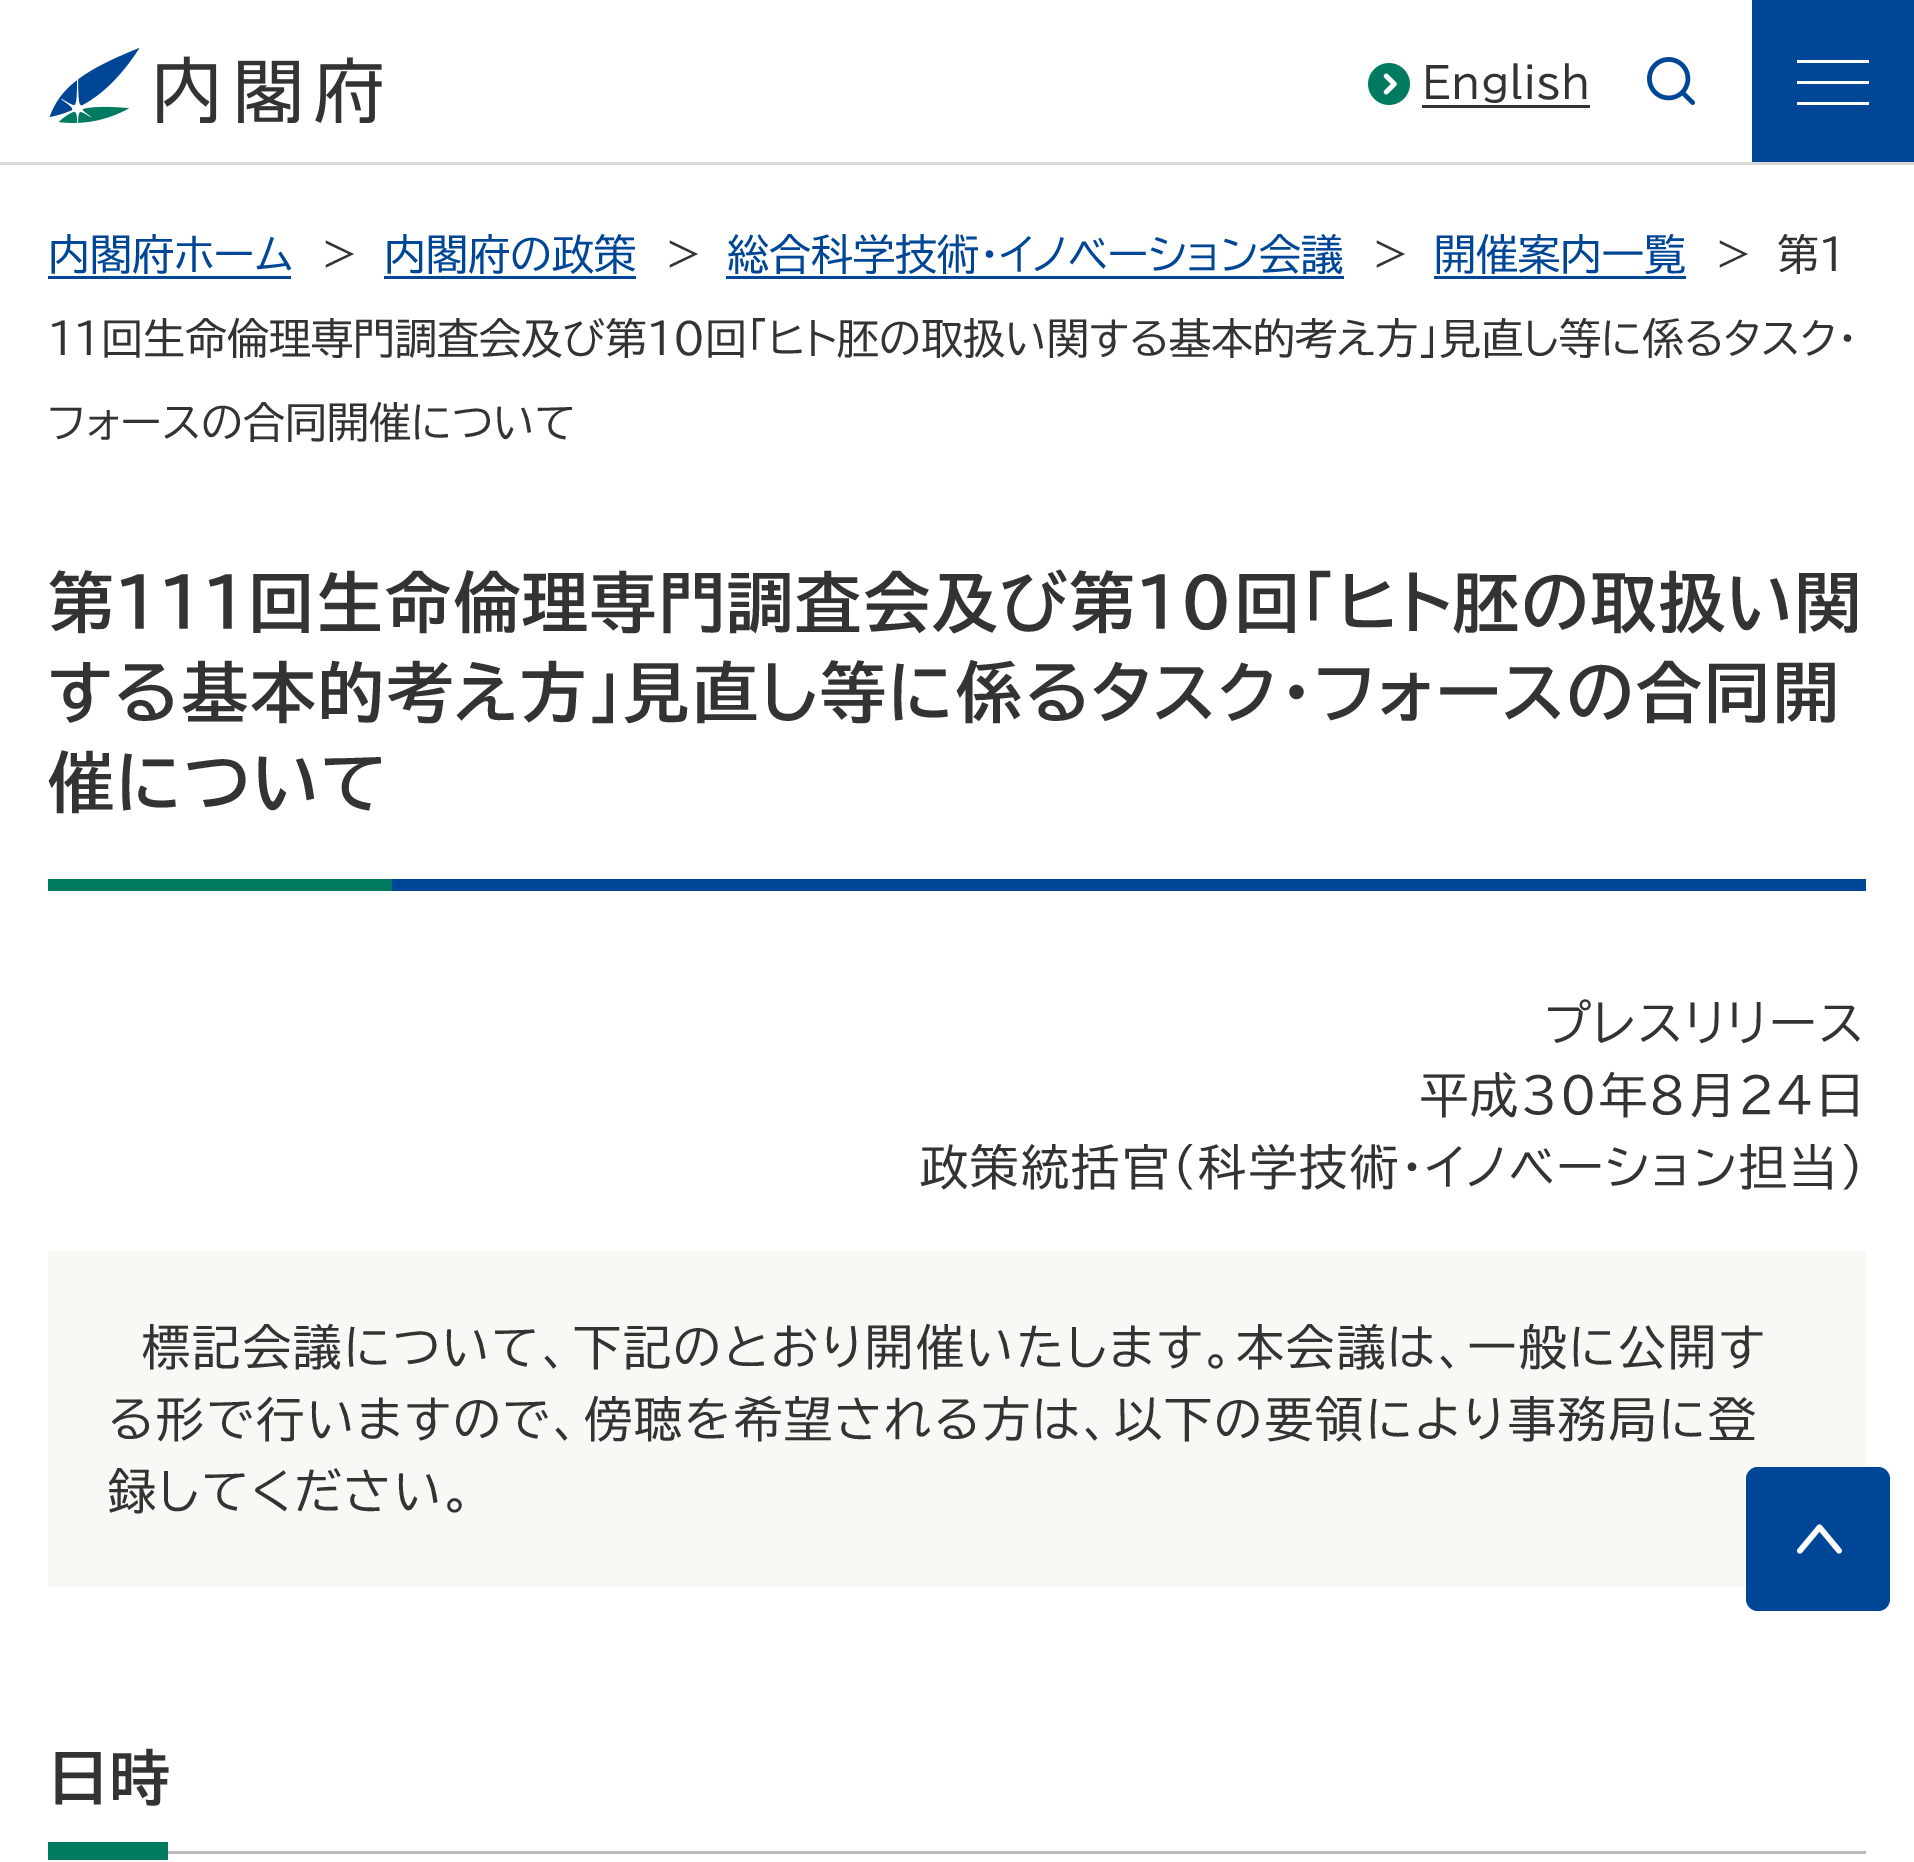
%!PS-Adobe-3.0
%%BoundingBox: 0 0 1914 1862
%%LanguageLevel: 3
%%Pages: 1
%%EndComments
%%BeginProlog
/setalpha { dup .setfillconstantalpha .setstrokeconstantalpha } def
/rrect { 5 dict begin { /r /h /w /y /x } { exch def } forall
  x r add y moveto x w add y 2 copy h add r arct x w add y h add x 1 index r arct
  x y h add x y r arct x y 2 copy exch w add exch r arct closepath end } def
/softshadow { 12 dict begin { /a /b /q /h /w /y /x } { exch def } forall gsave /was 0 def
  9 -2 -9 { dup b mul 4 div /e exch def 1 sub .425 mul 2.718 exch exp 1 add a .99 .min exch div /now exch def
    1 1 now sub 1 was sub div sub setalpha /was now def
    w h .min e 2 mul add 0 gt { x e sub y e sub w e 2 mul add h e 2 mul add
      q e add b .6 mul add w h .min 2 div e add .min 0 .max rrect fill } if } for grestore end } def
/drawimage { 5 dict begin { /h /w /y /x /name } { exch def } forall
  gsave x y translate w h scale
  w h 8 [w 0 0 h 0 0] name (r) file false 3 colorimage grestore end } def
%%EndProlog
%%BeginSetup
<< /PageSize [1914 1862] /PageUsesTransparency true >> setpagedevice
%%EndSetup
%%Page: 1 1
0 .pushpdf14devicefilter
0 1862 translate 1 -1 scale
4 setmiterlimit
1 setgray
0 0 1914 1862 rectfill
0.851 setgray
0 162 1914 3 rectfill
(images/1.raw) 49 48 333 75 drawimage
(images/2.raw) 1368 63 42 42 drawimage
0.2 setgray
1422 105 168 3 rectfill
(images/3.raw) 1647 57 48 48 drawimage
0 0.275 0.592 setrgbcolor
1752 0 162 162 rectfill
1 setgray
1797 102 72 3 rectfill
1797 81 72 3 rectfill
1797 60 72 3 rectfill
0 0.275 0.592 setrgbcolor
48 276 243 3 rectfill
384 276 252 3 rectfill
726 276 618 3 rectfill
1434 276 252 3 rectfill
(images/4.raw) 48 879 1818 12 drawimage
0.973 0.973 0.961 setrgbcolor
48 1251 1818 336 rectfill
0.733 setgray
168 1851 1698 3 rectfill
0 0.478 0.376 setrgbcolor
48 1842 120 18 rectfill
1 setgray
1746 1467 144 144 12 1.5 1 softshadow
0 0.275 0.592 setrgbcolor
1746 1467 144 144 12 rrect fill
(images/5.raw) 1797 1524 45 30 drawimage
/BIZUDPGothic-Regular [42 0 0 -42 0 0] selectfont
0.2 setgray
1422 98 moveto (English) show
0 0.275 0.592 setrgbcolor
48 270 moveto (内閣府ホーム) show
0.2 setgray
322 270 moveto (>) show
0 0.275 0.592 setrgbcolor
384 270 moveto (内閣府の政策) show
0.2 setgray
666 270 moveto (>) show
0 0.275 0.592 setrgbcolor
727 270 moveto (総合科学技術・イノベーション会議) show
0.2 setgray
1373 270 moveto (>) show
0 0.275 0.592 setrgbcolor
1434 270 moveto (開催案内一覧) show
0.2 setgray
1716 270 moveto (>) show
1777 270 moveto (第１) show
48 354 moveto (１１回生命倫理専門調査会及び第１０回「ヒト胚の取扱い関する基本的考え方」見直し等に係るタスク・) show
48 438 moveto (フォースの合同開催について) show
/BIZUDPGothic-Bold [66 0 0 -66 0 0] selectfont
48 627 moveto 2.4 0 (第１１１回生命倫理専門調査会及び第１０回「ヒト胚の取扱い関) ashow
48 717 moveto 2.4 0 (する基本的考え方」見直し等に係るタスク・フォースの合同開) ashow
48 807 moveto 2.4 0 (催について) ashow
/BIZUDPGothic-Regular [48 0 0 -48 0 0] selectfont
1544 1041 moveto 2.4 0 (プレスリリース) ashow
1420 1113 moveto 2.4 0 (平成３０年８月２４日) ashow
920 1185 moveto 2.4 0 (政策統括官（科学技術・イノベーション担当）) ashow
142 1365 moveto 2.4 0 (標記会議について、下記のとおり開催いたします。本会議は、一般に公開す) ashow
108 1437 moveto 2.4 0 (る形で行いますので、傍聴を希望される方は、以下の要領により事務局に登) ashow
108 1509 moveto 2.4 0 (録してください。) ashow
/BIZUDPGothic-Bold [60 0 0 -60 0 0] selectfont
48 1800 moveto 2.4 0 (日時) ashow
.poppdf14devicefilter showpage
%%EOF
